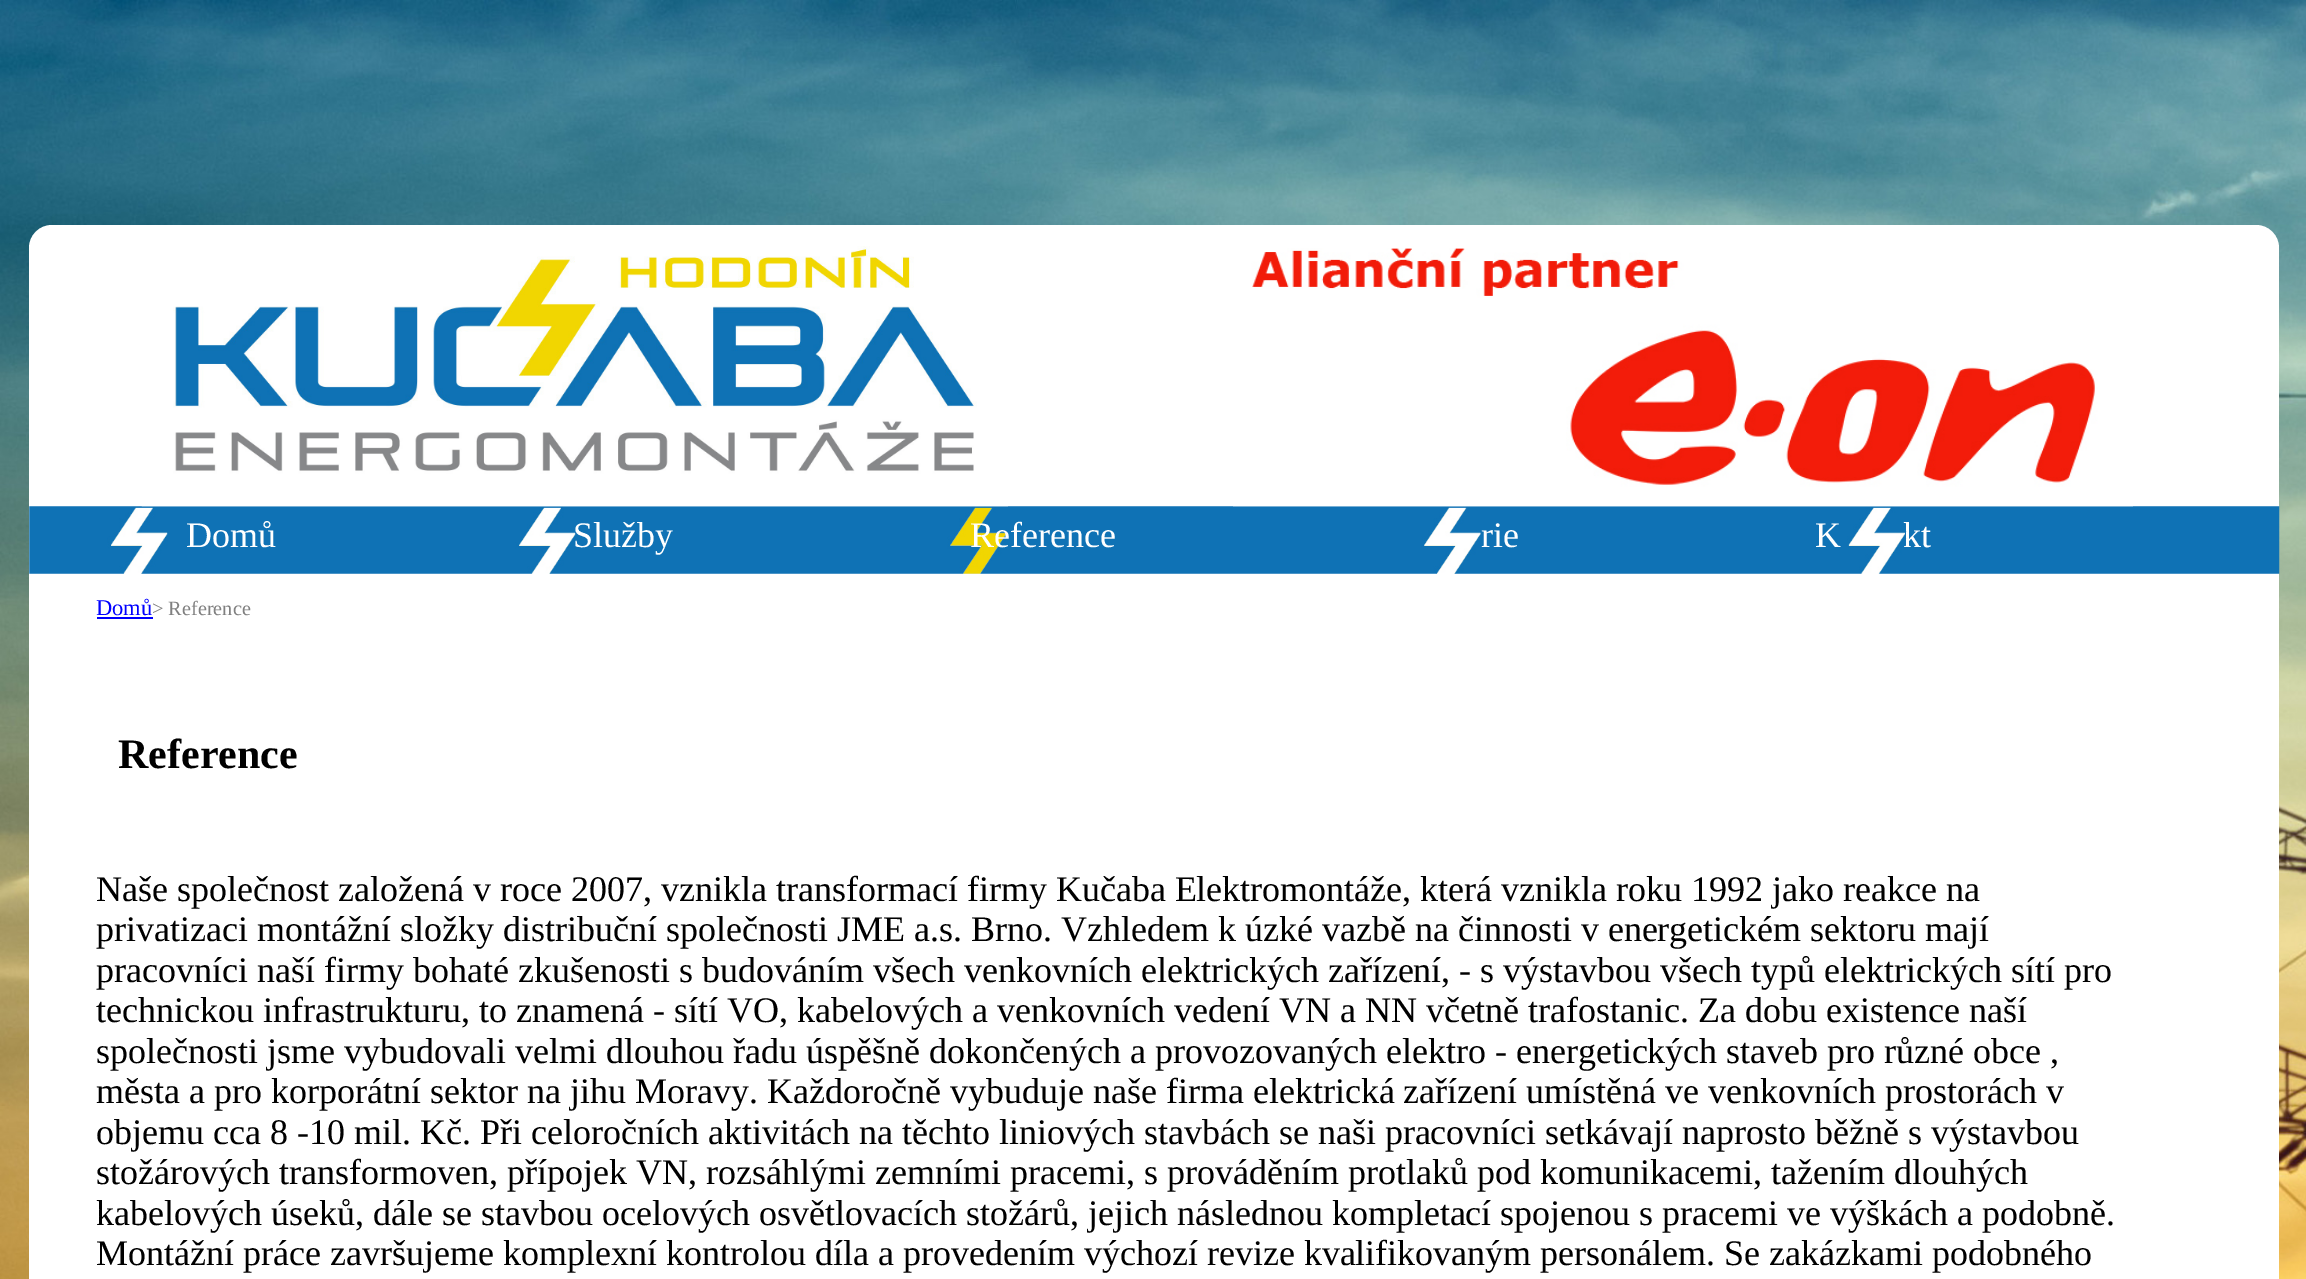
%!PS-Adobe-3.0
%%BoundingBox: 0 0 2306 1279
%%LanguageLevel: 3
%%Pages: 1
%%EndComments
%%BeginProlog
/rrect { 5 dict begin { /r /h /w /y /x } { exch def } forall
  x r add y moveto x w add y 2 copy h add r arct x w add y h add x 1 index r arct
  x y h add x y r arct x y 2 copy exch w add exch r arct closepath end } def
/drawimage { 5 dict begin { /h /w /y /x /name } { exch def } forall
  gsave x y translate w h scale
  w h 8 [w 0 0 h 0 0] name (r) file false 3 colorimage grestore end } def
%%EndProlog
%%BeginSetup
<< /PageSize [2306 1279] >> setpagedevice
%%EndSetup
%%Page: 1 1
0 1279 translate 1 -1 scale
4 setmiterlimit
1 setgray
0 0 2306 1279 rectfill
(images/1.raw) 0 0 2306 1279 drawimage
29 225 2250 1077 23 rrect fill
(images/4.raw) 29 506 2251 68 drawimage
(images/2.raw) 141 246 867 261 drawimage
(images/3.raw) 1233 248 900 259 drawimage
0 0 1 setrgbcolor
97 617 56 2 rectfill
/LiberationSerif-Regular [36 0 0 -36 0 0] selectfont
1 setgray
186 547 moveto (Domů) show
573 547 moveto (Služby) show
970 547 moveto (Reference) show
1481 547 moveto (rie) show
1815 547 moveto (K) show
1903 547 moveto (kt) show
/LiberationSerif-Regular [22.5 0 0 -22.5 0 0] selectfont
0 0 1 setrgbcolor
96 615 moveto (Domů) show
/LiberationSerif-Regular [20.25 0 0 -20.25 0 0] selectfont
0.502 setgray
152 615 moveto (> Reference) show
/LiberationSerif-Bold [42 0 0 -42 0 0] selectfont
0 setgray
118 768 moveto (Reference) show
/LiberationSerif-Regular [36 0 0 -36 0 0] selectfont
96 901 moveto (Naše společnost založená v roce 2007, vznikla transformací firmy Kučaba Elektromontáže, která vznikla roku 1992 jako reakce na) show
96 941 moveto (privatizaci montážní složky distribuční společnosti JME a.s. Brno. Vzhledem k úzké vazbě na činnosti v energetickém sektoru mají) show
96 982 moveto (pracovníci naší firmy bohaté zkušenosti s budováním všech venkovních elektrických zařízení, - s výstavbou všech typů elektrických sítí pro) show
96 1022 moveto (technickou infrastrukturu, to znamená - sítí VO, kabelových a venkovních vedení VN a NN včetně trafostanic. Za dobu existence naší) show
96 1063 moveto (společnosti jsme vybudovali velmi dlouhou řadu úspěšně dokončených a provozovaných elektro - energetických staveb pro různé obce ,) show
96 1103 moveto (města a pro korporátní sektor na jihu Moravy. Každoročně vybuduje naše firma elektrická zařízení umístěná ve venkovních prostorách v) show
96 1144 moveto (objemu cca 8 -10 mil. Kč. Při celoročních aktivitách na těchto liniových stavbách se naši pracovníci setkávají naprosto běžně s výstavbou) show
96 1184 moveto (stožárových transformoven, přípojek VN, rozsáhlými zemními pracemi, s prováděním protlaků pod komunikacemi, tažením dlouhých) show
96 1225 moveto (kabelových úseků, dále se stavbou ocelových osvětlovacích stožárů, jejich následnou kompletací spojenou s pracemi ve výškách a podobně.) show
96 1265 moveto (Montážní práce završujeme komplexní kontrolou díla a provedením výchozí revize kvalifikovaným personálem. Se zakázkami podobného) show
showpage
%%EOF
